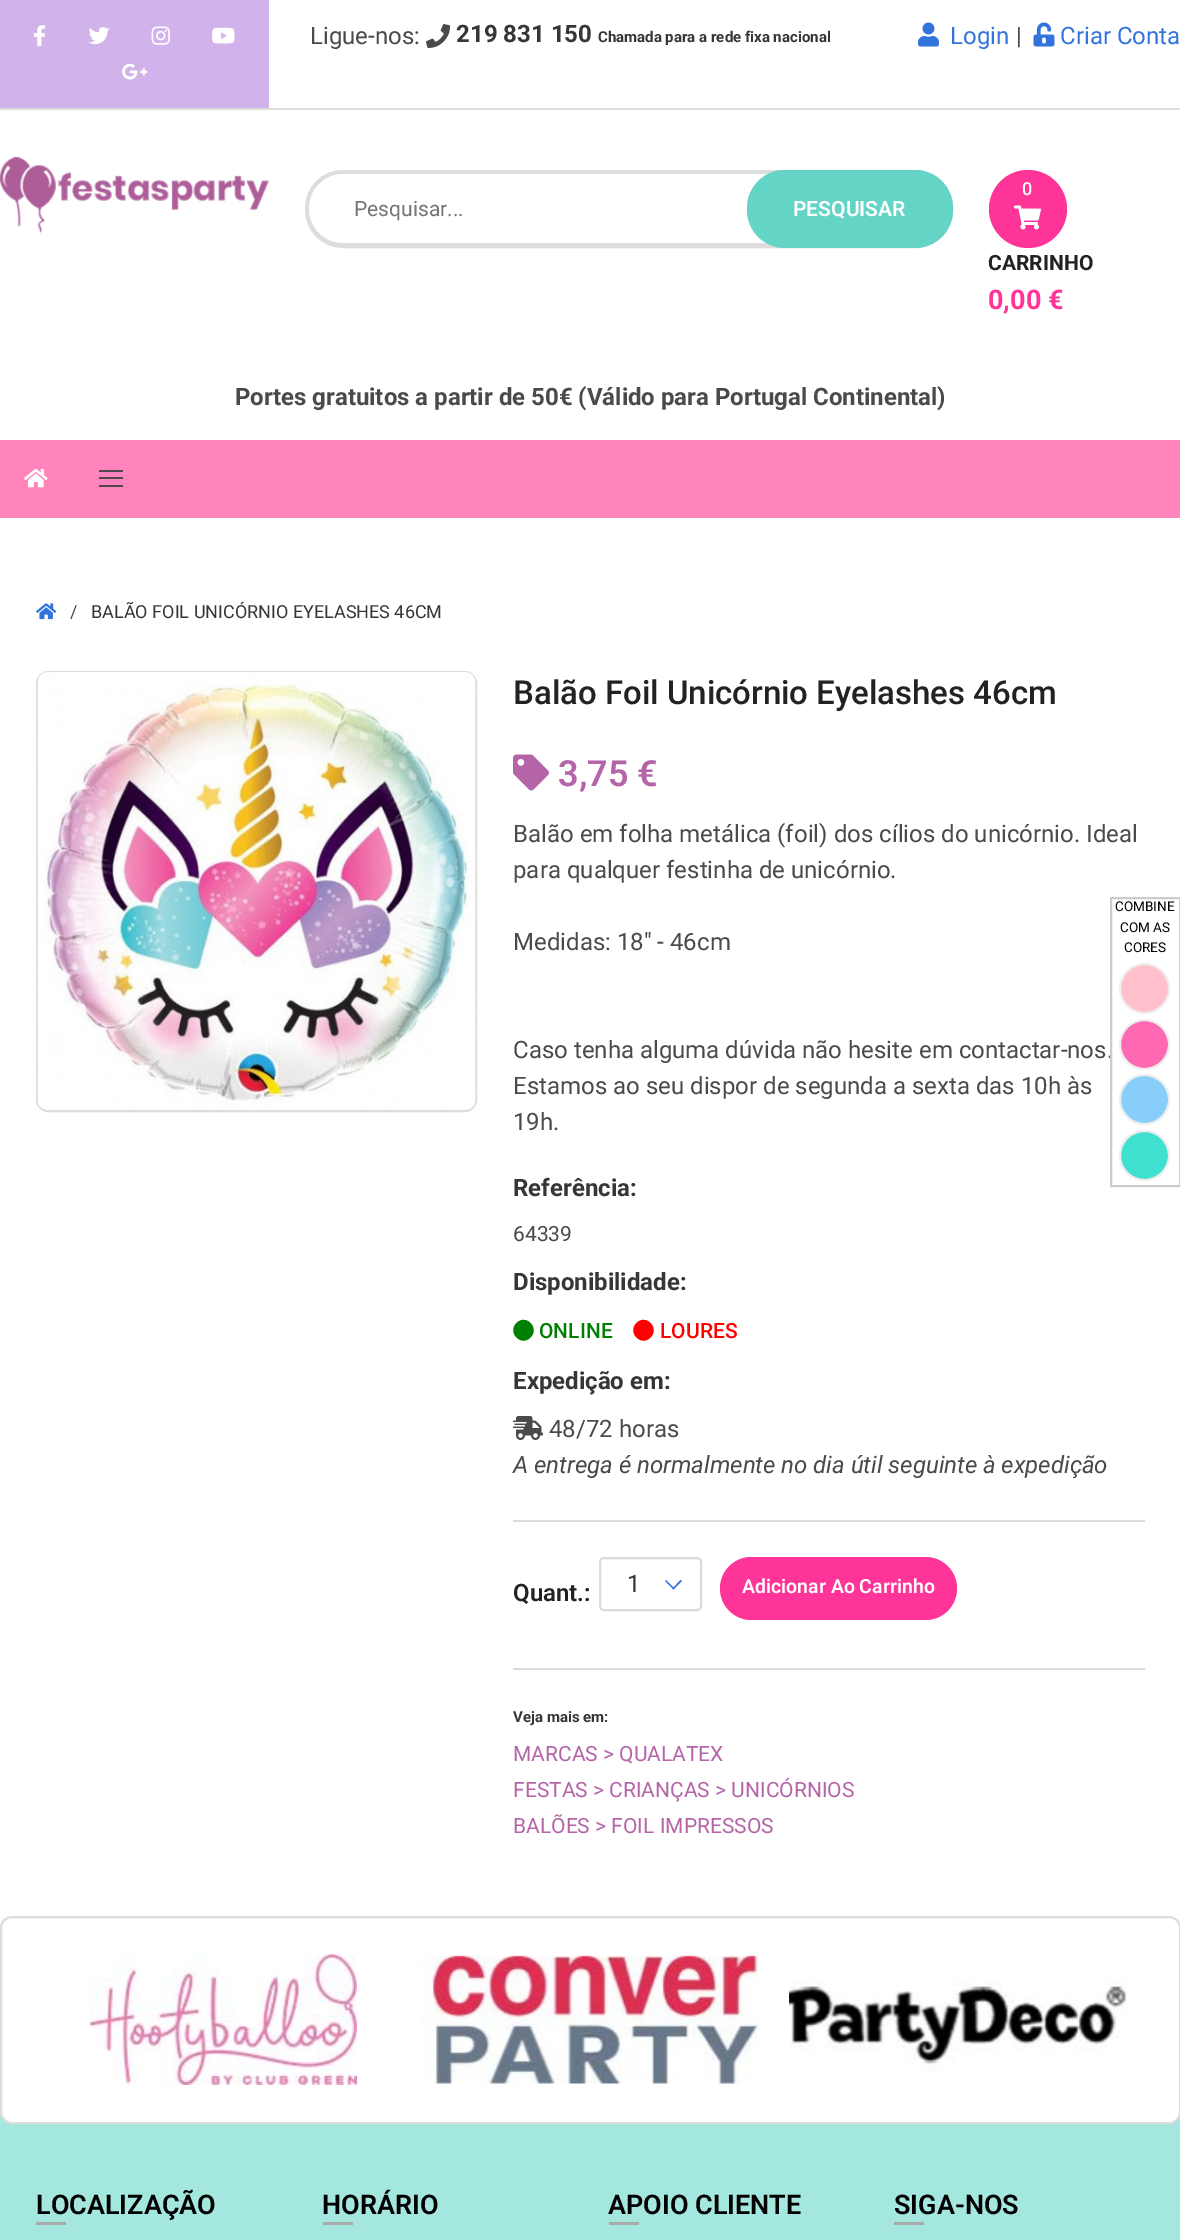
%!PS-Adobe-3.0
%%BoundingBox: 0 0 1180 2240
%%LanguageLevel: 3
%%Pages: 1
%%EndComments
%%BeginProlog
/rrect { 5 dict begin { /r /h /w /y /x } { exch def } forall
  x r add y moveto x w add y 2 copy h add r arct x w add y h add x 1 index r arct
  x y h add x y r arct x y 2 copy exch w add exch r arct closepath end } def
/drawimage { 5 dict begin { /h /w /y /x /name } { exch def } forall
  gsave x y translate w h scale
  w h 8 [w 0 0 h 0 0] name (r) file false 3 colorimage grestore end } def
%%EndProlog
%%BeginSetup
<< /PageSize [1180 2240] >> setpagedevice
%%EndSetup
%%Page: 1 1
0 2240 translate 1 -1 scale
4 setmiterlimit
1 setgray
0 0 1180 2240 rectfill
0.867 setgray
0 108 1180 2 rectfill
0.82 0.698 0.918 setrgbcolor
0 0 269 108 rectfill
(images/1.raw) 33 25 13 22 drawimage
(images/2.raw) 88 27 22 18 drawimage
(images/3.raw) 151 26 19 19 drawimage
(images/4.raw) 212 27 23 17 drawimage
(images/5.raw) 122 63 26 17 drawimage
(images/6.raw) 426 24 25 24 drawimage
(images/7.raw) 918 22 21 25 drawimage
(images/8.raw) 1033 22 22 25 drawimage
(images/9.raw) 0 156 269 78 drawimage
0.867 setgray
5 setlinewidth
307.5 172.5 643 73 35.5 rrect stroke
1 setgray
309 174 639 69 34.5 rrect fill
0.392 0.831 0.78 setrgbcolor
747 170 206 78 38 rrect fill
1 0.204 0.596 setrgbcolor
newpath 1028 209 39 0 360 arc closepath fill
(images/10.raw) 1014 205 27 25 drawimage
1 0.518 0.737 setrgbcolor
0 440 1180 78 rectfill
(images/11.raw) 24 468 24 20 drawimage
0.29 setgray
99 470 24 2 rectfill
99 477 24 2 rectfill
99 485 24 2 rectfill
(images/12.raw) 36 603 21 17 drawimage
0.867 setgray
2 setlinewidth
37 672 439 439 11 rrect stroke
(images/13.raw) 37 672 439 438 drawimage
(images/14.raw) 513 754 36 37 drawimage
0 0.502 0 setrgbcolor
newpath 516.5 1323 moveto 526 1313.5 540 1328 530.5 1337.5 curveto 521 1347 507 1332.5 516.5 1323 curveto closepath fill
1 0 0 setrgbcolor
newpath 636.5 1323 moveto 646 1313.5 660 1328 650.5 1337.5 curveto 641 1347 627 1332.5 636.5 1323 curveto closepath fill
(images/15.raw) 513 1416 30 24 drawimage
0.859 setgray
513 1520 632 2 rectfill
600 1558 101 52 4 rrect stroke
0.196 0.451 0.863 setrgbcolor
newpath 672.5 1588.5 moveto 680.5 1580 lineto 682 1581 lineto 673.5 1589.5 lineto closepath fill
newpath 665 1581 moveto 666 1580 lineto 674.5 1588.5 lineto 673.5 1589.5 lineto closepath fill
1 0.204 0.596 setrgbcolor
720 1557 237 63 31.5 rrect fill
0.859 setgray
513 1668 632 2 rectfill
0.643 0.906 0.875 setrgbcolor
0 2112 1180 128 rectfill
1 setgray
1 1917 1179 206 11 rrect gsave fill grestore
0.867 setgray
stroke
(images/16.raw) 89 1954 268 131 drawimage
(images/17.raw) 421 1955 338 129 drawimage
(images/18.raw) 789 1980 338 93 drawimage
0.667 setgray
36 2222 30 3 rectfill
323 2222 30 3 rectfill
609 2222 30 3 rectfill
894 2222 30 3 rectfill
/Roboto-Regular [24 0 0 -24 0 0] selectfont
0.29 setgray
310 44 moveto (Ligue-nos:) show
/Roboto-Bold [24 0 0 -24 0 0] selectfont
0.212 setgray
456 42 moveto (219 831 150) show
/Roboto-Bold [15 0 0 -15 0 0] selectfont
598 42 moveto (Chamada para a rede fixa nacional) show
/Roboto-Regular [24 0 0 -24 0 0] selectfont
0.196 0.451 0.863 setrgbcolor
950 44 moveto (Login) show
0.29 setgray
1016 44 moveto (|) show
0.196 0.451 0.863 setrgbcolor
1060 44 moveto (Criar Conta) show
/Roboto-Regular [21 0 0 -21 0 0] selectfont
0.459 setgray
354 216 moveto (Pesquisar...) show
/Roboto-SemiBold [21 0 0 -21 0 0] selectfont
1 setgray
793 216 moveto (PESQUISAR) show
/Roboto-Medium [18 0 0 -18 0 0] selectfont
1022 195 moveto (0) show
/Roboto-Bold [21 0 0 -21 0 0] selectfont
0.133 setgray
988 270 moveto (CARRINHO) show
/Roboto-Bold [27 0 0 -27 0 0] selectfont
1 0.204 0.596 setrgbcolor
988 309 moveto (0,00 €) show
/Roboto-Bold [24 0 0 -24 0 0] selectfont
0.29 setgray
235 405 moveto (Portes gratuitos a partir de 50€ \(Válido para Portugal Continental\)) show
/Roboto-Regular [18 0 0 -18 0 0] selectfont
70 618 moveto (/) show
0.212 setgray
91 618 moveto (BALÃO FOIL UNICÓRNIO EYELASHES 46CM) show
/Roboto-Medium [33 0 0 -33 0 0] selectfont
0.133 setgray
513 704 moveto (Balão Foil Unicórnio Eyelashes 46cm) show
/Roboto-SemiBold [36 0 0 -36 0 0] selectfont
0.71 0.396 0.655 setrgbcolor
558 786 moveto (3,75 €) show
/Roboto-Regular [24 0 0 -24 0 0] selectfont
0.29 setgray
513 842 moveto (Balão em folha metálica \(foil\) dos cílios do unicórnio. Ideal) show
513 878 moveto (para qualquer festinha de unicórnio.) show
513 950 moveto (Medidas: 18" - 46cm) show
513 1058 moveto (Caso tenha alguma dúvida não hesite em contactar-nos.) show
513 1094 moveto (Estamos ao seu dispor de segunda a sexta das 10h às) show
513 1130 moveto (19h.) show
/Roboto-Bold [24 0 0 -24 0 0] selectfont
0.212 setgray
513 1196 moveto (Referência:) show
/Roboto-Regular [21 0 0 -21 0 0] selectfont
0.29 setgray
513 1241 moveto (64339) show
/Roboto-Bold [24 0 0 -24 0 0] selectfont
0.212 setgray
513 1290 moveto (Disponibilidade:) show
/Roboto-Medium [21 0 0 -21 0 0] selectfont
0 0.502 0 setrgbcolor
539 1338 moveto (ONLINE) show
1 0 0 setrgbcolor
660 1338 moveto (LOURES) show
/Roboto-Bold [24 0 0 -24 0 0] selectfont
0.212 setgray
513 1389 moveto (Expedição em:) show
/Roboto-Regular [24 0 0 -24 0 0] selectfont
0.29 setgray
549 1437 moveto (48/72 horas) show
/Roboto-Italic [24 0 0 -24 0 0] selectfont
513 1473 moveto (A entrega é normalmente no dia útil seguinte à expedição) show
/Roboto-SemiBold [24 0 0 -24 0 0] selectfont
0.133 setgray
513 1601 moveto (Quant.:) show
/Roboto-Regular [24 0 0 -24 0 0] selectfont
0.212 setgray
627 1592 moveto (1) show
/Roboto-SemiBold [19.5 0 0 -19.5 0 0] selectfont
1 setgray
742 1593 moveto (Adicionar Ao Carrinho) show
/Roboto-Bold [15 0 0 -15 0 0] selectfont
0.212 setgray
513 1722 moveto (Veja mais em:) show
/Roboto-Regular [21 0 0 -21 0 0] selectfont
0.71 0.396 0.655 setrgbcolor
513 1761 moveto (MARCAS > QUALATEX) show
513 1797 moveto (FESTAS > CRIANÇAS > UNICÓRNIOS) show
513 1833 moveto (BALÕES > FOIL IMPRESSOS) show
0.8 setgray
1111 898 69 288 rectstroke
/Roboto-Regular [13.5 0 0 -13.5 0 0] selectfont
0 setgray
1115 911 moveto (COMBINE) show
1120 932 moveto (COM AS) show
1124 952 moveto (CORES) show
1 0.753 0.796 setrgbcolor
newpath 1144.5 988.5 24.5 0 360 arc closepath gsave fill grestore
0.933 setgray
stroke
1 0.412 0.706 setrgbcolor
newpath 1144.5 1044.5 24.5 0 360 arc closepath gsave fill grestore
0.933 setgray
stroke
0.529 0.808 0.98 setrgbcolor
newpath 1144.5 1099.5 24.5 0 360 arc closepath gsave fill grestore
0.933 setgray
stroke
0.251 0.878 0.816 setrgbcolor
newpath 1144.5 1155.5 24.5 0 360 arc closepath gsave fill grestore
0.933 setgray
stroke
/Roboto-SemiBold [27 0 0 -27 0 0] selectfont
0 setgray
36 2214 moveto (LOCALIZAÇÃO) show
322 2214 moveto (HORÁRIO) show
608 2214 moveto (APOIO CLIENTE) show
894 2214 moveto (SIGA-NOS) show
showpage
%%EOF
